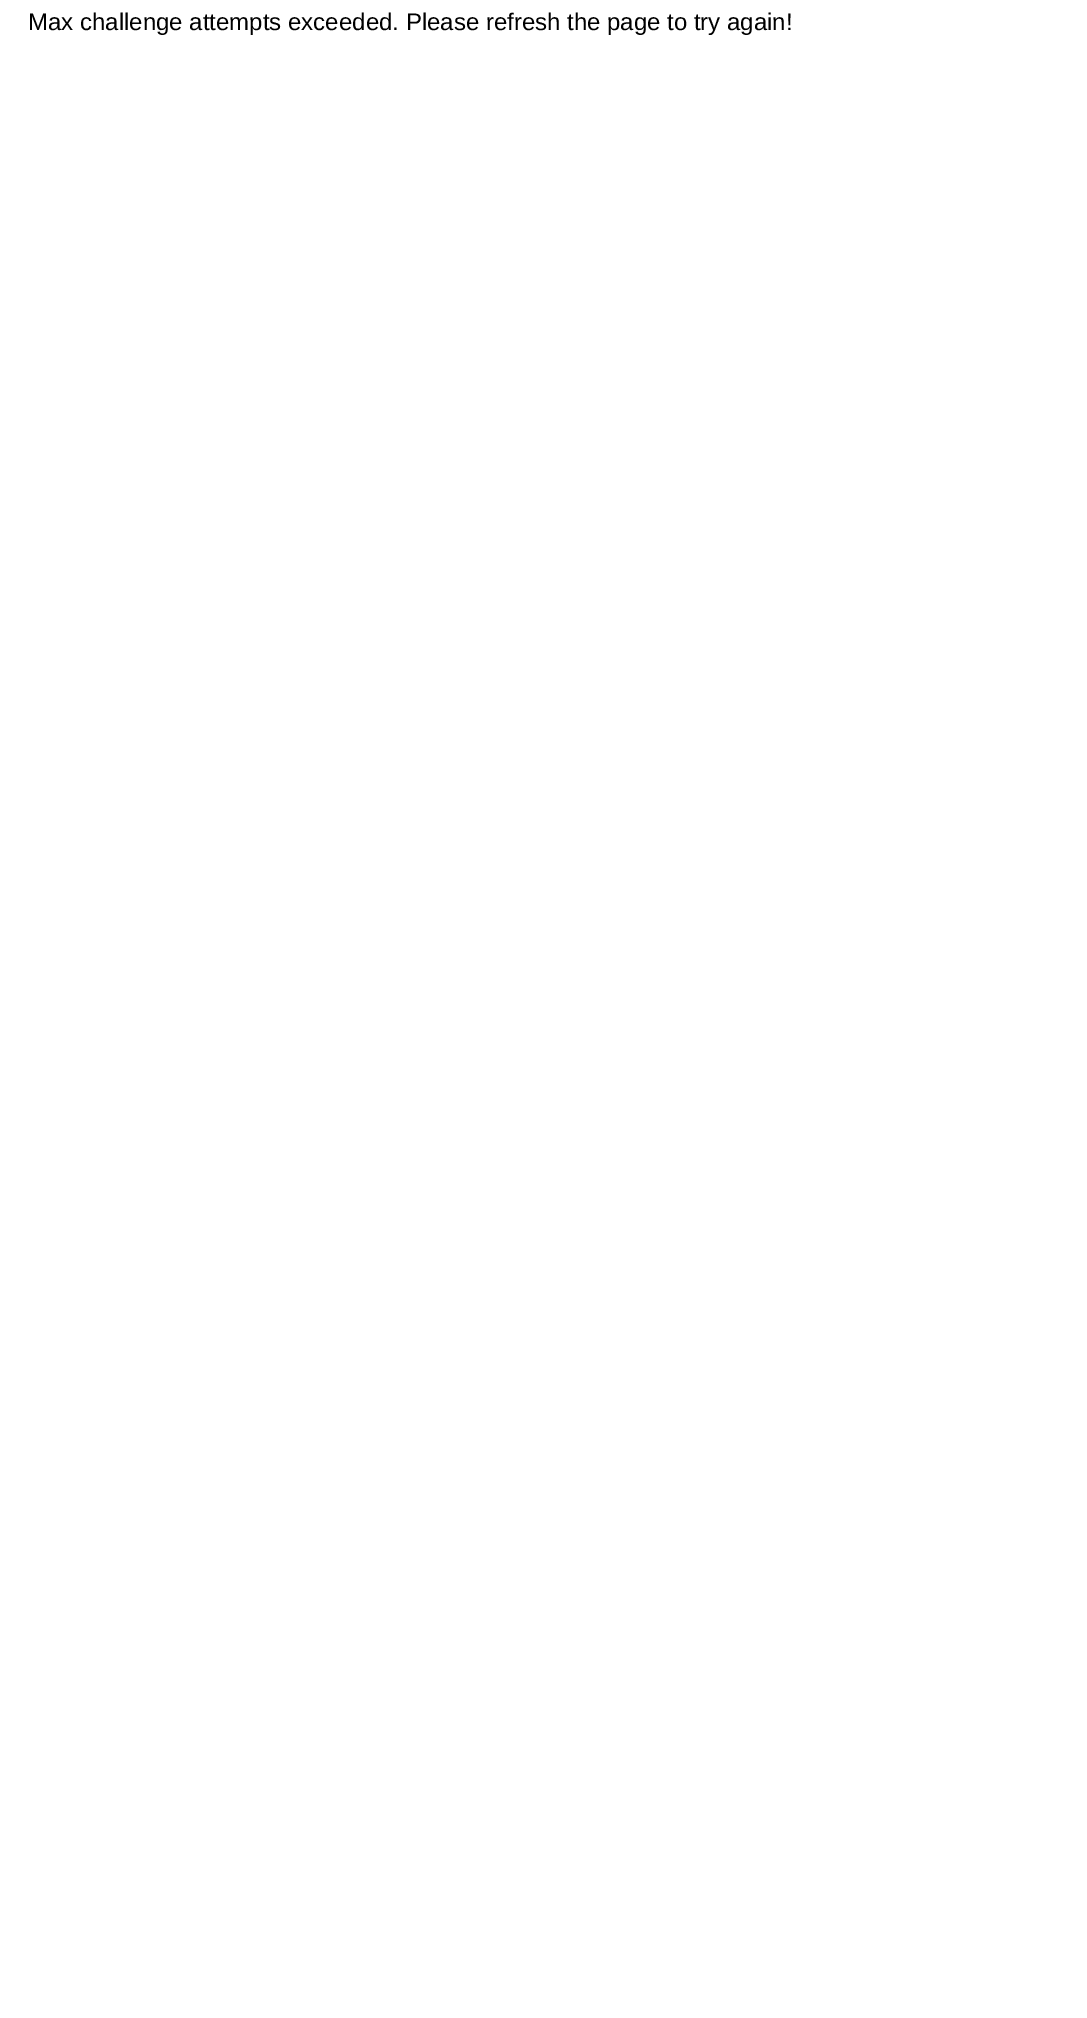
%!PS-Adobe-3.0
%%BoundingBox: 0 0 1087 2018
%%LanguageLevel: 3
%%Pages: 1
%%EndComments
%%BeginProlog
%%EndProlog
%%BeginSetup
<< /PageSize [1087 2018] >> setpagedevice
%%EndSetup
%%Page: 1 1
0 2018 translate 1 -1 scale
4 setmiterlimit
1 setgray
0 0 1087 2018 rectfill
/LiberationSans-Regular [24 0 0 -24 0 0] selectfont
0 setgray
28 30 moveto (Max challenge attempts exceeded. Please refresh the page to try again!) show
showpage
%%EOF
